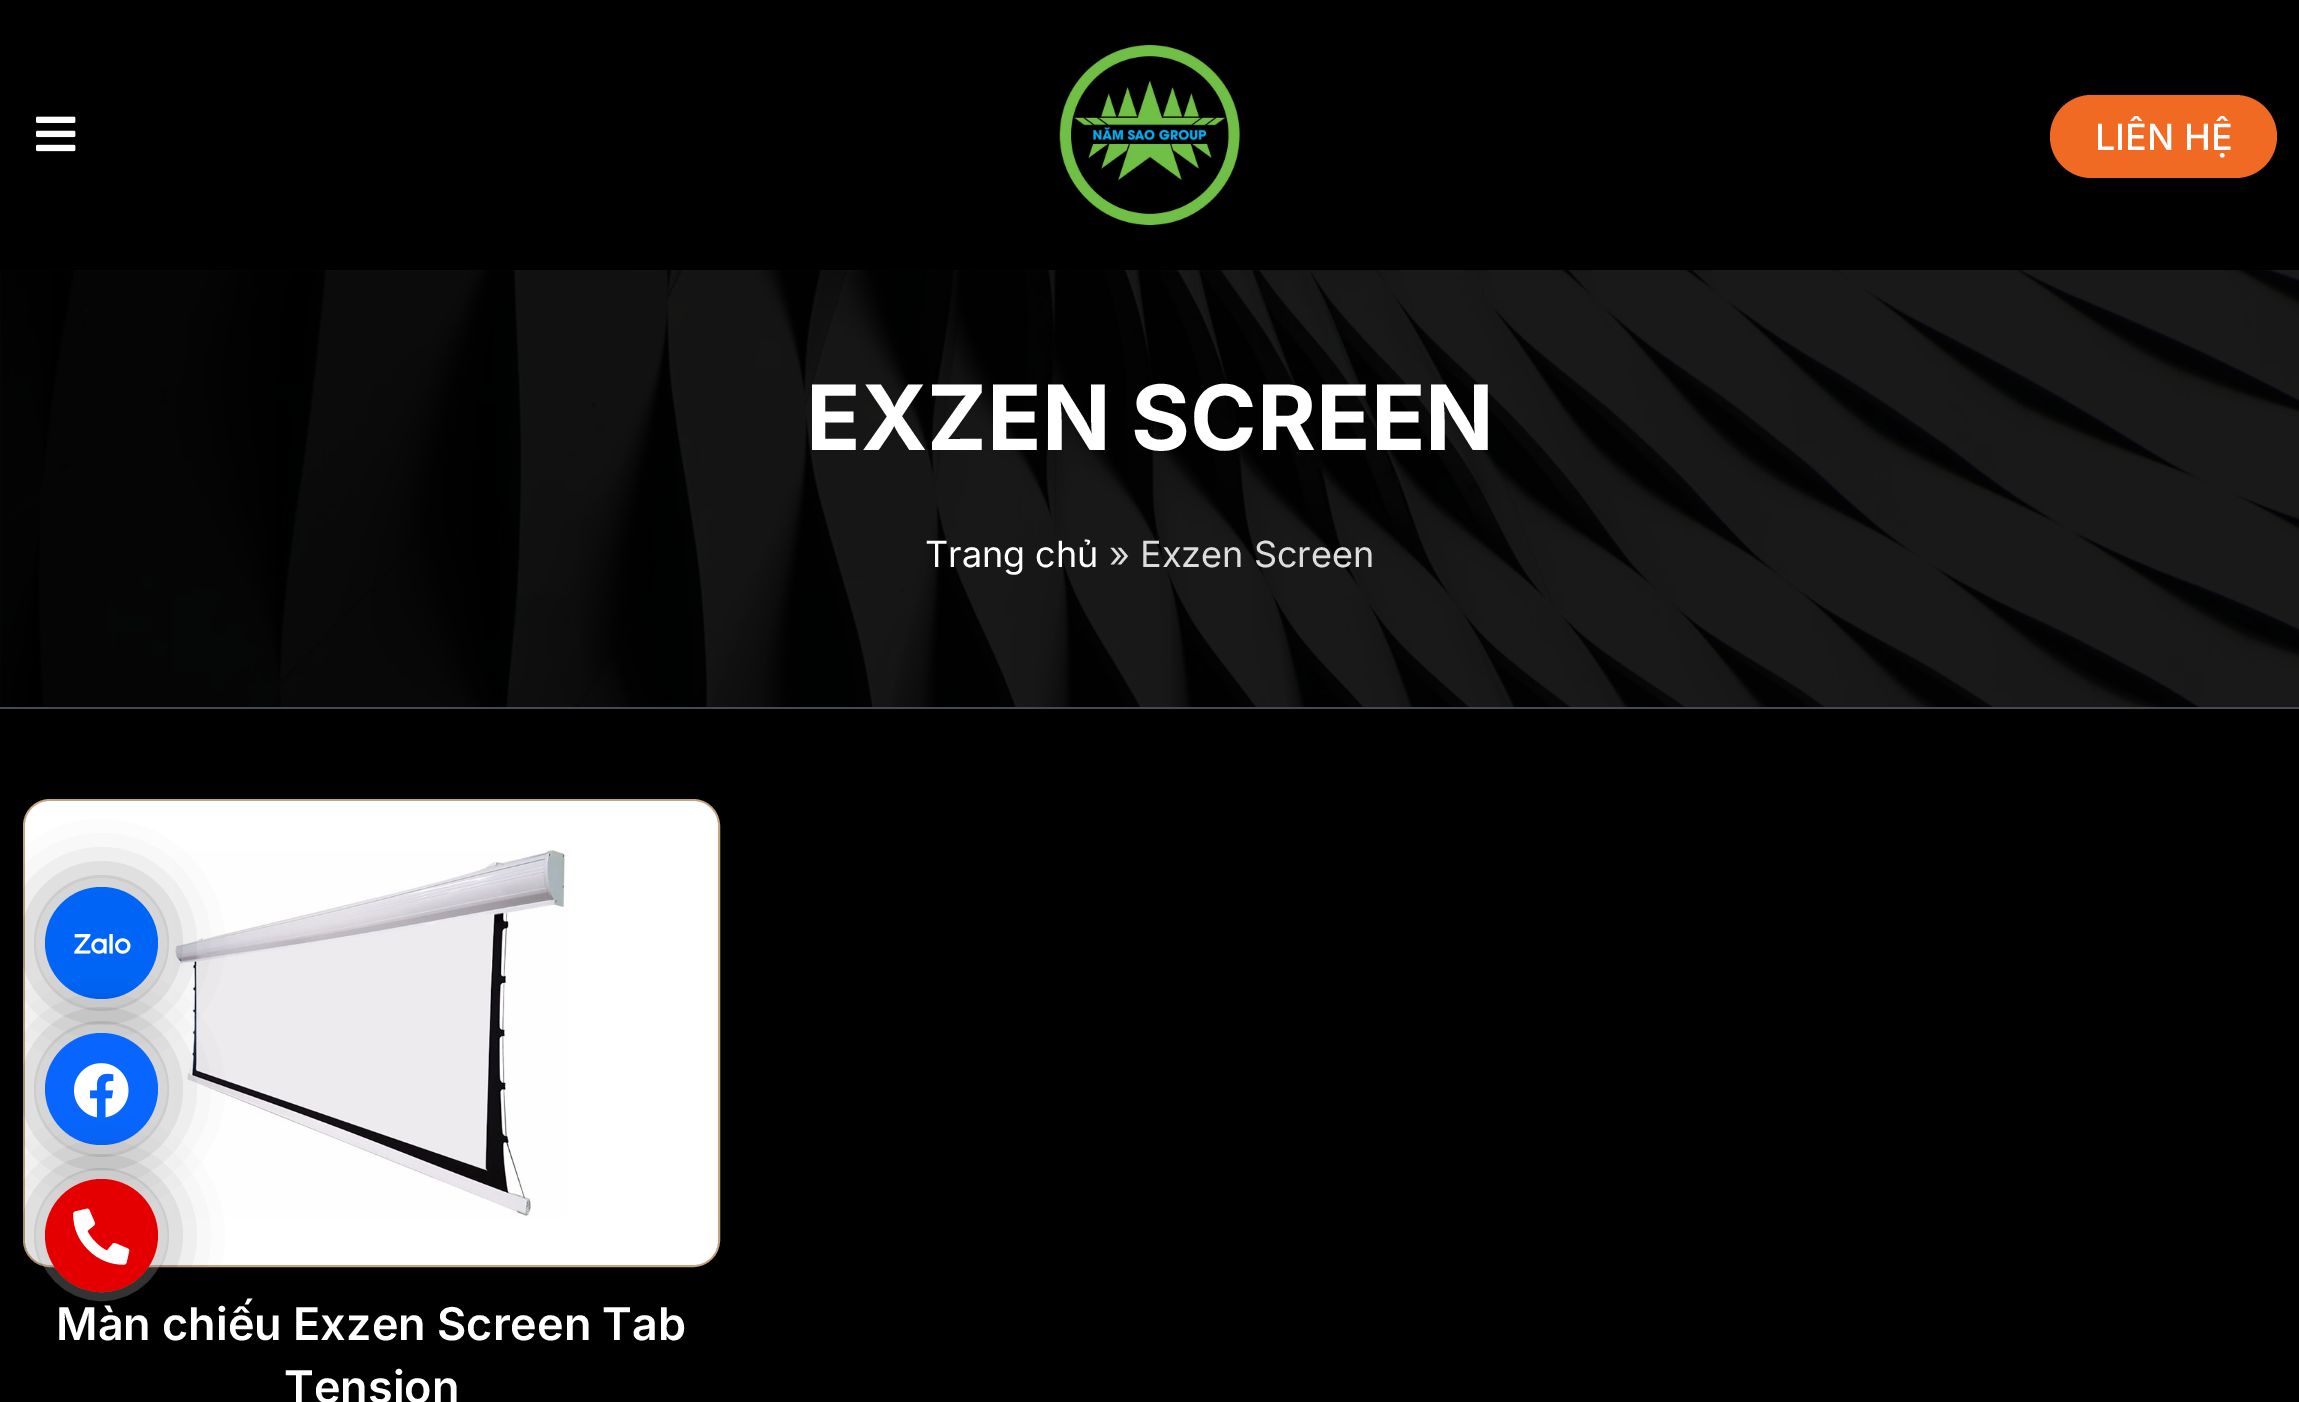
%!PS-Adobe-3.0
%%BoundingBox: 0 0 2299 1402
%%LanguageLevel: 3
%%Pages: 1
%%EndComments
%%BeginProlog
/setalpha { dup .setfillconstantalpha .setstrokeconstantalpha } def
/rrect { 5 dict begin { /r /h /w /y /x } { exch def } forall
  x r add y moveto x w add y 2 copy h add r arct x w add y h add x 1 index r arct
  x y h add x y r arct x y 2 copy exch w add exch r arct closepath end } def
/softshadow { 12 dict begin { /a /b /q /h /w /y /x } { exch def } forall gsave /was 0 def
  9 -2 -9 { dup b mul 4 div /e exch def 1 sub .425 mul 2.718 exch exp 1 add a .99 .min exch div /now exch def
    1 1 now sub 1 was sub div sub setalpha /was now def
    w h .min e 2 mul add 0 gt { x e sub y e sub w e 2 mul add h e 2 mul add
      q e add b .6 mul add w h .min 2 div e add .min 0 .max rrect fill } if } for grestore end } def
/drawimage { 5 dict begin { /h /w /y /x /name } { exch def } forall
  gsave x y translate w h scale
  w h 8 [w 0 0 h 0 0] name (r) file false 3 colorimage grestore end } def
%%EndProlog
%%BeginSetup
<< /PageSize [2299 1402] /PageUsesTransparency true >> setpagedevice
%%EndSetup
%%Page: 1 1
0 .pushpdf14devicefilter
0 1402 translate 1 -1 scale
4 setmiterlimit
0 setgray
0 0 2299 1402 rectfill
(images/1.raw) 36 116 40 36 drawimage
(images/2.raw) 1059 45 181 180 drawimage
0.945 0.416 0.137 setrgbcolor
2050 95 227 83 41.5 rrect fill
(images/3.raw) 0 270 2299 437 drawimage
0.275 0.294 0.318 setrgbcolor
0 707 2299 2 rectfill
0.773 0.643 0.494 setrgbcolor
2 setlinewidth
24 800 695 466 26 rrect stroke
1 setgray
25 801 693 464 25 rrect fill
(images/4.raw) 174 850 393 368 drawimage
0 setgray
41 882 121 122 60.5 28 0.4 softshadow
0.2 setalpha
1 setgray
9 setlinewidth
40.5 882.5 122 121 60.5 rrect stroke
0.4 setalpha
1 1 0.608 setrgbcolor
34 setlinewidth
62 904 79 78 39 rrect stroke
1 setalpha
0 0.396 0.969 setrgbcolor
45 887 113 112 56 rrect fill
0 setgray
41 1028 121 122 60.5 28 0.4 softshadow
(images/5.raw) 74 934 57 20 drawimage
0.2 setalpha
1 setgray
9 setlinewidth
40.5 1028.5 122 121 60.5 rrect stroke
0.4 setalpha
1 1 0.608 setrgbcolor
34 setlinewidth
62 1050 79 78 39 rrect stroke
1 setalpha
0.031 0.4 1 setrgbcolor
45 1033 113 112 56 rrect fill
0 setgray
41 1175 121 121 60.5 28 0.4 softshadow
(images/6.raw) 74 1063 55 55 drawimage
/Inter-Medium [36 0 0 -36 0 0] selectfont
1 setgray
2095 150 moveto (LIÊN HỆ) show
/Inter-Bold [90 0 0 -90 0 0] selectfont
806 450 moveto (EXZEN SCREEN) show
/Inter-Regular [36 0 0 -36 0 0] selectfont
925 567 moveto (Trang chủ) show
0.867 setgray
1109 567 moveto (» Exzen Screen) show
/Inter-SemiBold [45 0 0 -45 0 0] selectfont
1 setgray
56 1340 moveto (Màn chiếu Exzen Screen Tab) show
284 1403 moveto (Tension) show
0.2 setalpha
9 setlinewidth
newpath 101.5 1235.5 61 0 360 arc closepath stroke
0.4 setalpha
1 1 0.608 setrgbcolor
34 setlinewidth
newpath 101.5 1235.5 39.5 0 360 arc closepath stroke
1 setalpha
0.894 0 0 setrgbcolor
newpath 101.5 1235.5 56.5 0 360 arc closepath fill
(images/7.raw) 73 1208 57 57 drawimage
.poppdf14devicefilter showpage
%%EOF
